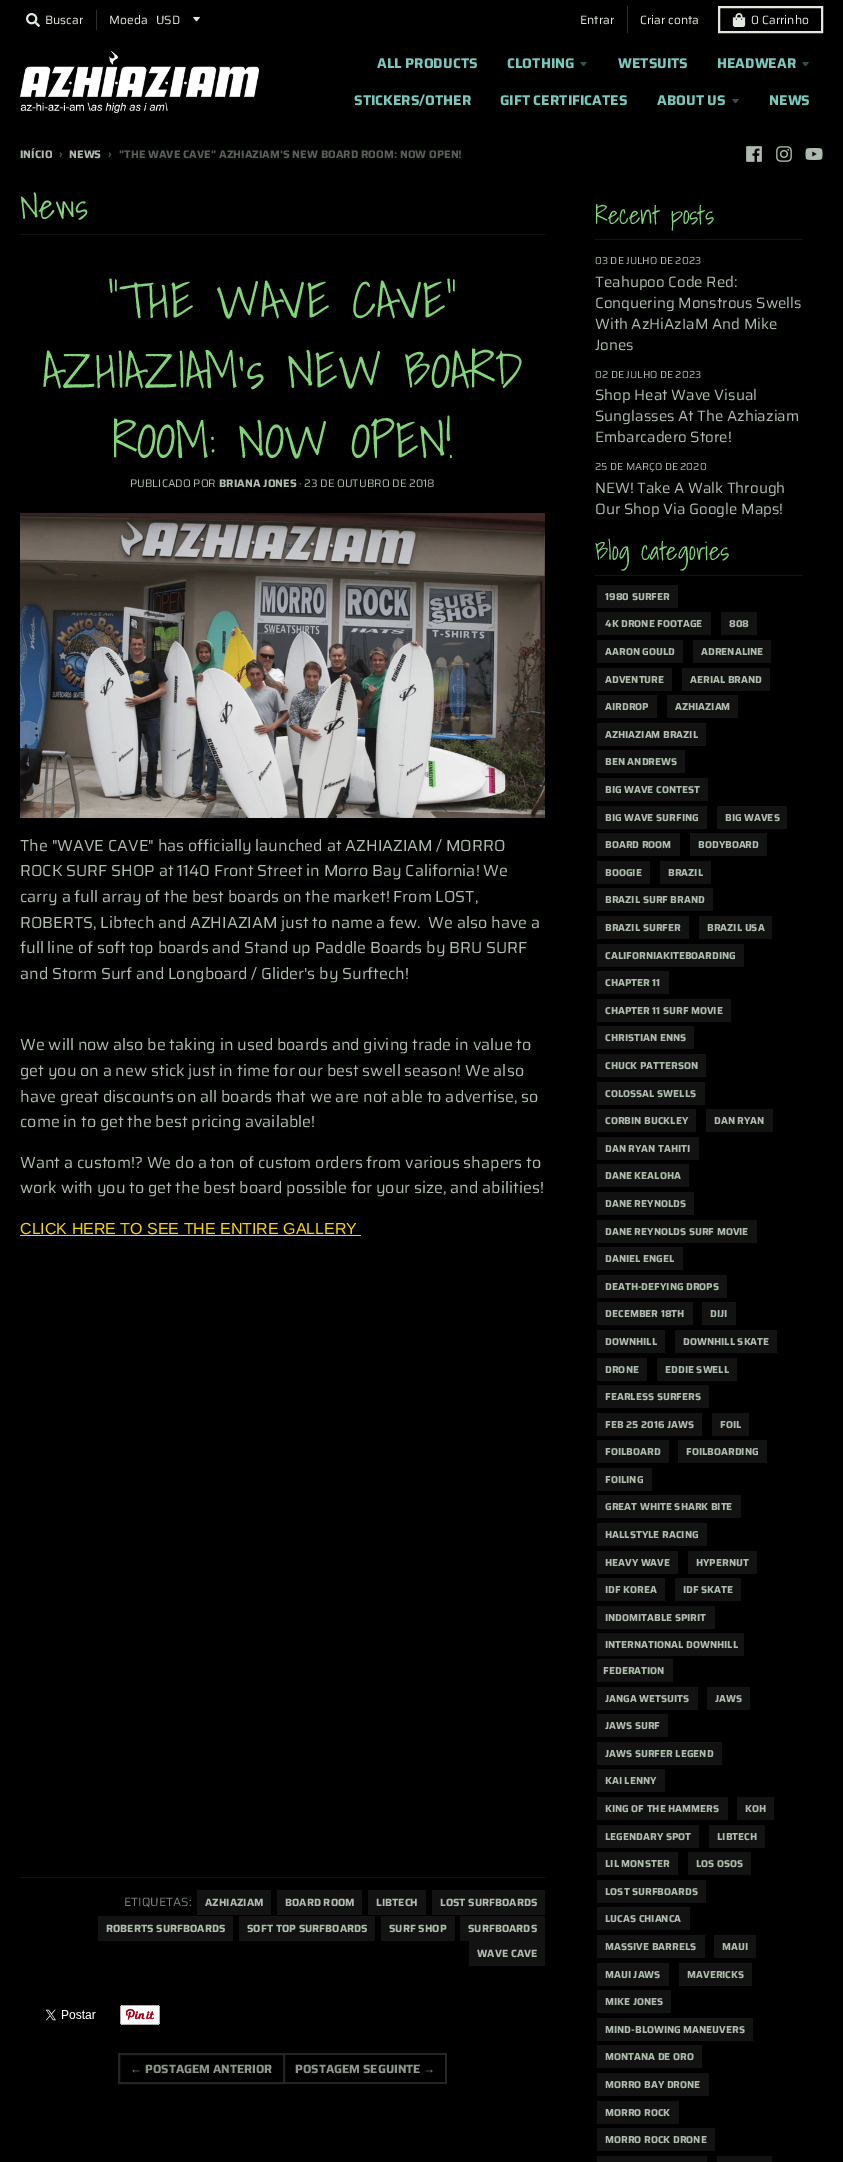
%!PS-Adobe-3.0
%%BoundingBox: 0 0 843 2162
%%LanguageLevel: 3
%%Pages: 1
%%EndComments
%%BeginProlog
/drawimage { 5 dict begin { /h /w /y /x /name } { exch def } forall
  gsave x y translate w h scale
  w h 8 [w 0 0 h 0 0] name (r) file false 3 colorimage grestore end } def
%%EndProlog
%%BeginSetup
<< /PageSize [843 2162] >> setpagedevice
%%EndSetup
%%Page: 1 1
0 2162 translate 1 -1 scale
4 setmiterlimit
0 setgray
0 0 843 2162 rectfill
(images/1.raw) 26 13 14 14 drawimage
0.176 0.18 0.173 setrgbcolor
96 10 1 20 rectfill
0.886 0.91 0.867 setrgbcolor
newpath 193 17 moveto 197.5 22.5 195.5 22.5 200 17 curveto closepath fill
0.176 0.18 0.173 setrgbcolor
627 6 1 27 rectfill
0.886 0.91 0.867 setrgbcolor
2 setlinewidth
719 7 103 25 rectstroke
(images/2.raw) 732 13 14 14 drawimage
(images/3.raw) 20 51 239 62 drawimage
0.192 0.314 0.298 setrgbcolor
newpath 580 62 moveto 584.5 67.5 582.5 67.5 587 62 curveto closepath fill
newpath 802 62 moveto 806.5 67.5 804.5 67.5 809 62 curveto closepath fill
newpath 732 99 moveto 736.5 104.5 734.5 104.5 739 99 curveto closepath fill
(images/4.raw) 746 146 16 16 drawimage
(images/5.raw) 776 146 16 16 drawimage
(images/6.raw) 805 148 18 12 drawimage
0.067 0.071 0.067 setrgbcolor
20 234 525 1 rectfill
(images/7.raw) 20 513 525 305 drawimage
0.969 0.835 0.043 setrgbcolor
20 1235 341 1 rectfill
0.067 0.071 0.067 setrgbcolor
20 1877 525 1 rectfill
197 1890 8 25 rectfill
205 1890 66 25 rectfill
277 1890 8 25 rectfill
285 1890 77 25 rectfill
368 1890 8 25 rectfill
376 1890 50 25 rectfill
432 1890 8 25 rectfill
440 1890 105 25 rectfill
98 1916 8 25 rectfill
106 1916 127 25 rectfill
239 1916 8 25 rectfill
247 1916 128 25 rectfill
381 1916 8 25 rectfill
389 1916 66 25 rectfill
460 1916 8 25 rectfill
468 1916 77 25 rectfill
469 1941 8 25 rectfill
477 1941 68 25 rectfill
(images/8.raw) 45 2009 51 12 drawimage
(images/9.raw) 120 2005 40 20 drawimage
0.137 0.145 0.133 setrgbcolor
119 2054 165 29 rectstroke
285 2053 162 2 rectfill
445 2053 2 31 rectfill
285 2082 162 2 rectfill
0.047 0.082 0.047 setrgbcolor
595 239 208 1 rectfill
595 575 208 1 rectfill
0.067 0.071 0.067 setrgbcolor
597 585 6 23 rectfill
603 585 75 23 rectfill
597 612 6 23 rectfill
603 612 108 23 rectfill
721 612 6 23 rectfill
727 612 30 23 rectfill
597 640 6 23 rectfill
603 640 80 23 rectfill
693 640 6 23 rectfill
699 640 72 23 rectfill
597 668 6 23 rectfill
603 668 69 23 rectfill
682 668 6 23 rectfill
688 668 82 23 rectfill
597 695 6 23 rectfill
603 695 54 23 rectfill
667 695 6 23 rectfill
673 695 65 23 rectfill
597 723 6 23 rectfill
603 723 103 23 rectfill
597 750 6 23 rectfill
603 750 82 23 rectfill
597 778 6 23 rectfill
603 778 105 23 rectfill
597 806 6 23 rectfill
603 806 104 23 rectfill
717 806 6 23 rectfill
723 806 64 23 rectfill
597 833 6 23 rectfill
603 833 77 23 rectfill
690 833 6 23 rectfill
696 833 71 23 rectfill
597 861 6 23 rectfill
603 861 47 23 rectfill
660 861 6 23 rectfill
666 861 45 23 rectfill
597 888 6 23 rectfill
603 888 110 23 rectfill
597 916 6 23 rectfill
603 916 86 23 rectfill
699 916 6 23 rectfill
705 916 67 23 rectfill
597 944 6 23 rectfill
603 944 141 23 rectfill
597 971 6 23 rectfill
603 971 66 23 rectfill
597 999 6 23 rectfill
603 999 128 23 rectfill
597 1026 6 23 rectfill
603 1026 91 23 rectfill
597 1054 6 23 rectfill
603 1054 103 23 rectfill
597 1082 6 23 rectfill
603 1082 102 23 rectfill
597 1109 6 23 rectfill
603 1109 93 23 rectfill
706 1109 6 23 rectfill
712 1109 61 23 rectfill
597 1137 6 23 rectfill
603 1137 96 23 rectfill
597 1164 6 23 rectfill
603 1164 86 23 rectfill
597 1192 6 23 rectfill
603 1192 91 23 rectfill
597 1220 6 23 rectfill
603 1220 154 23 rectfill
597 1247 6 23 rectfill
603 1247 80 23 rectfill
597 1275 6 23 rectfill
603 1275 124 23 rectfill
597 1302 6 23 rectfill
603 1302 90 23 rectfill
702 1302 6 23 rectfill
708 1302 28 23 rectfill
597 1330 6 23 rectfill
603 1330 62 23 rectfill
675 1330 6 23 rectfill
681 1330 96 23 rectfill
597 1358 6 23 rectfill
603 1358 44 23 rectfill
657 1358 6 23 rectfill
663 1358 74 23 rectfill
597 1385 6 23 rectfill
603 1385 106 23 rectfill
597 1413 6 23 rectfill
603 1413 99 23 rectfill
712 1413 6 23 rectfill
718 1413 31 23 rectfill
597 1440 6 23 rectfill
603 1440 66 23 rectfill
678 1440 6 23 rectfill
684 1440 83 23 rectfill
597 1468 6 23 rectfill
603 1468 49 23 rectfill
597 1495 6 23 rectfill
603 1495 138 23 rectfill
597 1523 6 23 rectfill
603 1523 104 23 rectfill
597 1551 6 23 rectfill
603 1551 75 23 rectfill
688 1551 6 23 rectfill
694 1551 63 23 rectfill
597 1578 6 23 rectfill
603 1578 62 23 rectfill
675 1578 6 23 rectfill
681 1578 60 23 rectfill
597 1606 6 23 rectfill
603 1606 112 23 rectfill
597 1633 6 23 rectfill
603 1633 141 23 rectfill
597 1659 6 23 rectfill
603 1659 70 23 rectfill
597 1687 6 23 rectfill
603 1687 95 23 rectfill
707 1687 6 23 rectfill
713 1687 37 23 rectfill
597 1714 6 23 rectfill
603 1714 65 23 rectfill
597 1742 6 23 rectfill
603 1742 119 23 rectfill
597 1769 6 23 rectfill
603 1769 62 23 rectfill
597 1797 6 23 rectfill
603 1797 125 23 rectfill
737 1797 6 23 rectfill
743 1797 31 23 rectfill
597 1825 6 23 rectfill
603 1825 96 23 rectfill
709 1825 6 23 rectfill
715 1825 50 23 rectfill
597 1852 6 23 rectfill
603 1852 75 23 rectfill
688 1852 6 23 rectfill
694 1852 57 23 rectfill
597 1880 6 23 rectfill
603 1880 103 23 rectfill
597 1907 6 23 rectfill
603 1907 87 23 rectfill
597 1935 6 23 rectfill
603 1935 102 23 rectfill
714 1935 6 23 rectfill
720 1935 36 23 rectfill
597 1963 6 23 rectfill
603 1963 66 23 rectfill
679 1963 6 23 rectfill
685 1963 67 23 rectfill
597 1990 6 23 rectfill
603 1990 68 23 rectfill
597 2018 6 23 rectfill
603 2018 150 23 rectfill
597 2045 6 23 rectfill
603 2045 99 23 rectfill
597 2073 6 23 rectfill
603 2073 106 23 rectfill
597 2101 6 23 rectfill
603 2101 76 23 rectfill
597 2128 6 23 rectfill
603 2128 112 23 rectfill
597 2156 6 6 rectfill
603 2156 104 6 rectfill
717 2156 6 6 rectfill
723 2156 49 6 rectfill
/Saira-Regular [12 0 0 -12 0 0] selectfont
0.886 0.91 0.867 setrgbcolor
45 24 moveto (Buscar) show
109 24 moveto (Moeda) show
156 24 moveto (USD) show
580 24 moveto (Entrar) show
640 24 moveto (Criar conta) show
751 24 moveto (0 Carrinho) show
/Saira-Bold [14 0 0 -14 0 0] selectfont
0.478 0.78 0.745 setrgbcolor
377 68 moveto (ALL PRODUCTS) show
507 68 moveto (CLOTHING) show
618 68 moveto (WETSUITS) show
717 68 moveto (HEADWEAR) show
354 105 moveto (STICKERS/OTHER) show
500 105 moveto (GIFT CERTIFICATES) show
657 105 moveto (ABOUT US) show
769 105 moveto (NEWS) show
/Saira-Bold [11 0 0 -11 0 0] selectfont
0.686 0.729 0.682 setrgbcolor
20 158 moveto (INÍCIO) show
0.341 0.365 0.341 setrgbcolor
59 158 moveto (›) show
0.686 0.729 0.682 setrgbcolor
69 158 moveto (NEWS) show
0.341 0.365 0.341 setrgbcolor
108 158 moveto (›) show
119 158 moveto ("THE WAVE CAVE" AZHIAZIAM'S NEW BOARD ROOM: NOW OPEN!) show
/ShadowsIntoLight-Regular [35 0 0 -35 0 0] selectfont
0.51 0.835 0.475 setrgbcolor
20 219 moveto (News) show
/ShadowsIntoLight-Regular [50 0 0 -50 0 0] selectfont
108 318 moveto ("THE WAVE CAVE") show
42 388 moveto (AZHIAZIAM's NEW BOARD) show
112 458 moveto (ROOM: NOW OPEN!) show
/Saira-Regular [11 0 0 -11 0 0] selectfont
0.686 0.729 0.682 setrgbcolor
130 487 moveto (PUBLICADO POR) show
/Saira-Bold [11 0 0 -11 0 0] selectfont
219 487 moveto (BRIANA JONES) show
/Saira-Regular [11 0 0 -11 0 0] selectfont
299 487 moveto (· 23 DE OUTUBRO DE 2018) show
/Saira-Regular [16 0 0 -16 0 0] selectfont
20 851 moveto (The "WAVE CAVE" has officially launched at AZHIAZIAM / MORRO) show
20 876 moveto (ROCK SURF SHOP at 1140 Front Street in Morro Bay California! We) show
20 902 moveto (carry a full array of the best boards on the market! From LOST,) show
20 928 moveto (ROBERTS, Libtech and AZHIAZIAM just to name a few.  We also have a) show
20 953 moveto (full line of soft top boards and Stand up Paddle Boards by BRU SURF) show
20 979 moveto (and Storm Surf and Longboard / Glider's by Surftech!) show
20 1050 moveto (We will now also be taking in used boards and giving trade in value to) show
20 1076 moveto (get you on a new stick just in time for our best swell season! We also) show
20 1102 moveto (have great discounts on all boards that we are not able to advertise, so) show
20 1127 moveto (come in to get the best pricing available!) show
20 1168 moveto (Want a custom!? We do a ton of custom orders from various shapers to) show
20 1193 moveto (work with you to get the best board possible for your size, and abilities!) show
/LiberationSans-Regular [16 0 0 -16 0 0] selectfont
0.969 0.835 0.043 setrgbcolor
20 1234 moveto (CLICK HERE TO SEE THE ENTIRE GALLERY) show
/Saira-Regular [12 0 0 -12 0 0] selectfont
0.478 0.51 0.475 setrgbcolor
124 1906 moveto (ETIQUETAS:) show
/Saira-Bold [10.5 0 0 -10.5 0 0] selectfont
0.686 0.729 0.682 setrgbcolor
205 1906 moveto (AZHIAZIAM) show
285 1906 moveto (BOARD ROOM) show
376 1906 moveto (LIBTECH) show
440 1906 moveto (LOST SURFBOARDS) show
106 1932 moveto (ROBERTS SURFBOARDS) show
247 1932 moveto (SOFT TOP SURFBOARDS) show
389 1932 moveto (SURF SHOP) show
468 1932 moveto (SURFBOARDS) show
477 1957 moveto (WAVE CAVE) show
/LiberationSans-Bold [12 0 0 -12 0 0] selectfont
0.549 0.58 0.545 setrgbcolor
130 2073 moveto (←) show
/Saira-Bold [12 0 0 -12 0 0] selectfont
145 2073 moveto (POSTAGEM ANTERIOR) show
295 2073 moveto (POSTAGEM SEGUINTE) show
/LiberationSans-Bold [12 0 0 -12 0 0] selectfont
423 2073 moveto (→) show
/ShadowsIntoLight-Regular [25 0 0 -25 0 0] selectfont
0.51 0.835 0.475 setrgbcolor
595 224 moveto (Recent posts) show
/Saira-Regular [10.25 0 0 -10.25 0 0] selectfont
0.686 0.729 0.682 setrgbcolor
595 264 moveto (03 DE JULHO DE 2023) show
/Saira-Regular [15 0 0 -15 0 0] selectfont
595 287 moveto (Teahupoo Code Red:) show
595 308 moveto (Conquering Monstrous Swells) show
595 329 moveto (With AzHiAzIaM And Mike) show
595 350 moveto (Jones) show
/Saira-Regular [10.25 0 0 -10.25 0 0] selectfont
595 378 moveto (02 DE JULHO DE 2023) show
/Saira-Regular [15 0 0 -15 0 0] selectfont
595 400 moveto (Shop Heat Wave Visual) show
595 421 moveto (Sunglasses At The Azhiaziam) show
595 442 moveto (Embarcadero Store!) show
/Saira-Regular [10.25 0 0 -10.25 0 0] selectfont
595 470 moveto (25 DE MARÇO DE 2020) show
/Saira-Regular [15 0 0 -15 0 0] selectfont
595 493 moveto (NEW! Take A Walk Through) show
595 514 moveto (Our Shop Via Google Maps!) show
/ShadowsIntoLight-Regular [25 0 0 -25 0 0] selectfont
0.51 0.835 0.475 setrgbcolor
595 560 moveto (Blog categories) show
/Saira-Bold [10 0 0 -10 0 0] selectfont
0.686 0.729 0.682 setrgbcolor
605 600 moveto (1980 SURFER) show
605 627 moveto (4K DRONE FOOTAGE) show
729 627 moveto (808) show
605 655 moveto (AARON GOULD) show
701 655 moveto (ADRENALINE) show
605 683 moveto (ADVENTURE) show
690 683 moveto (AERIAL BRAND) show
605 710 moveto (AIRDROP) show
675 710 moveto (AZHIAZIAM) show
605 738 moveto (AZHIAZIAM BRAZIL) show
605 765 moveto (BEN ANDREWS) show
605 793 moveto (BIG WAVE CONTEST) show
605 821 moveto (BIG WAVE SURFING) show
725 821 moveto (BIG WAVES) show
605 848 moveto (BOARD ROOM) show
698 848 moveto (BODYBOARD) show
605 876 moveto (BOOGIE) show
668 876 moveto (BRAZIL) show
605 903 moveto (BRAZIL SURF BRAND) show
605 931 moveto (BRAZIL SURFER) show
707 931 moveto (BRAZIL USA) show
605 959 moveto (CALIFORNIAKITEBOARDING) show
605 986 moveto (CHAPTER 11) show
605 1014 moveto (CHAPTER 11 SURF MOVIE) show
605 1041 moveto (CHRISTIAN ENNS) show
605 1069 moveto (CHUCK PATTERSON) show
605 1097 moveto (COLOSSAL SWELLS) show
605 1124 moveto (CORBIN BUCKLEY) show
714 1124 moveto (DAN RYAN) show
605 1152 moveto (DAN RYAN TAHITI) show
605 1179 moveto (DANE KEALOHA) show
605 1207 moveto (DANE REYNOLDS) show
605 1235 moveto (DANE REYNOLDS SURF MOVIE) show
605 1262 moveto (DANIEL ENGEL) show
605 1290 moveto (DEATH-DEFYING DROPS) show
605 1317 moveto (DECEMBER 18TH) show
710 1317 moveto (DIJI) show
605 1345 moveto (DOWNHILL) show
683 1345 moveto (DOWNHILL SKATE) show
605 1373 moveto (DRONE) show
665 1373 moveto (EDDIE SWELL) show
605 1400 moveto (FEARLESS SURFERS) show
605 1428 moveto (FEB 25 2016 JAWS) show
720 1428 moveto (FOIL) show
605 1455 moveto (FOILBOARD) show
686 1455 moveto (FOILBOARDING) show
605 1483 moveto (FOILING) show
605 1510 moveto (GREAT WHITE SHARK BITE) show
605 1538 moveto (HALLSTYLE RACING) show
605 1566 moveto (HEAVY WAVE) show
696 1566 moveto (HYPERNUT) show
605 1593 moveto (IDF KOREA) show
683 1593 moveto (IDF SKATE) show
605 1621 moveto (INDOMITABLE SPIRIT) show
605 1648 moveto (INTERNATIONAL DOWNHILL) show
603 1674 moveto (FEDERATION) show
605 1702 moveto (JANGA WETSUITS) show
715 1702 moveto (JAWS) show
605 1729 moveto (JAWS SURF) show
605 1757 moveto (JAWS SURFER LEGEND) show
605 1784 moveto (KAI LENNY) show
605 1812 moveto (KING OF THE HAMMERS) show
745 1812 moveto (KOH) show
605 1840 moveto (LEGENDARY SPOT) show
717 1840 moveto (LIBTECH) show
605 1867 moveto (LIL MONSTER) show
696 1867 moveto (LOS OSOS) show
605 1895 moveto (LOST SURFBOARDS) show
605 1922 moveto (LUCAS CHIANCA) show
605 1950 moveto (MASSIVE BARRELS) show
722 1950 moveto (MAUI) show
605 1978 moveto (MAUI JAWS) show
687 1978 moveto (MAVERICKS) show
605 2005 moveto (MIKE JONES) show
605 2033 moveto (MIND-BLOWING MANEUVERS) show
605 2060 moveto (MONTANA DE ORO) show
605 2088 moveto (MORRO BAY DRONE) show
605 2116 moveto (MORRO ROCK) show
605 2143 moveto (MORRO ROCK DRONE) show
showpage
%%EOF
